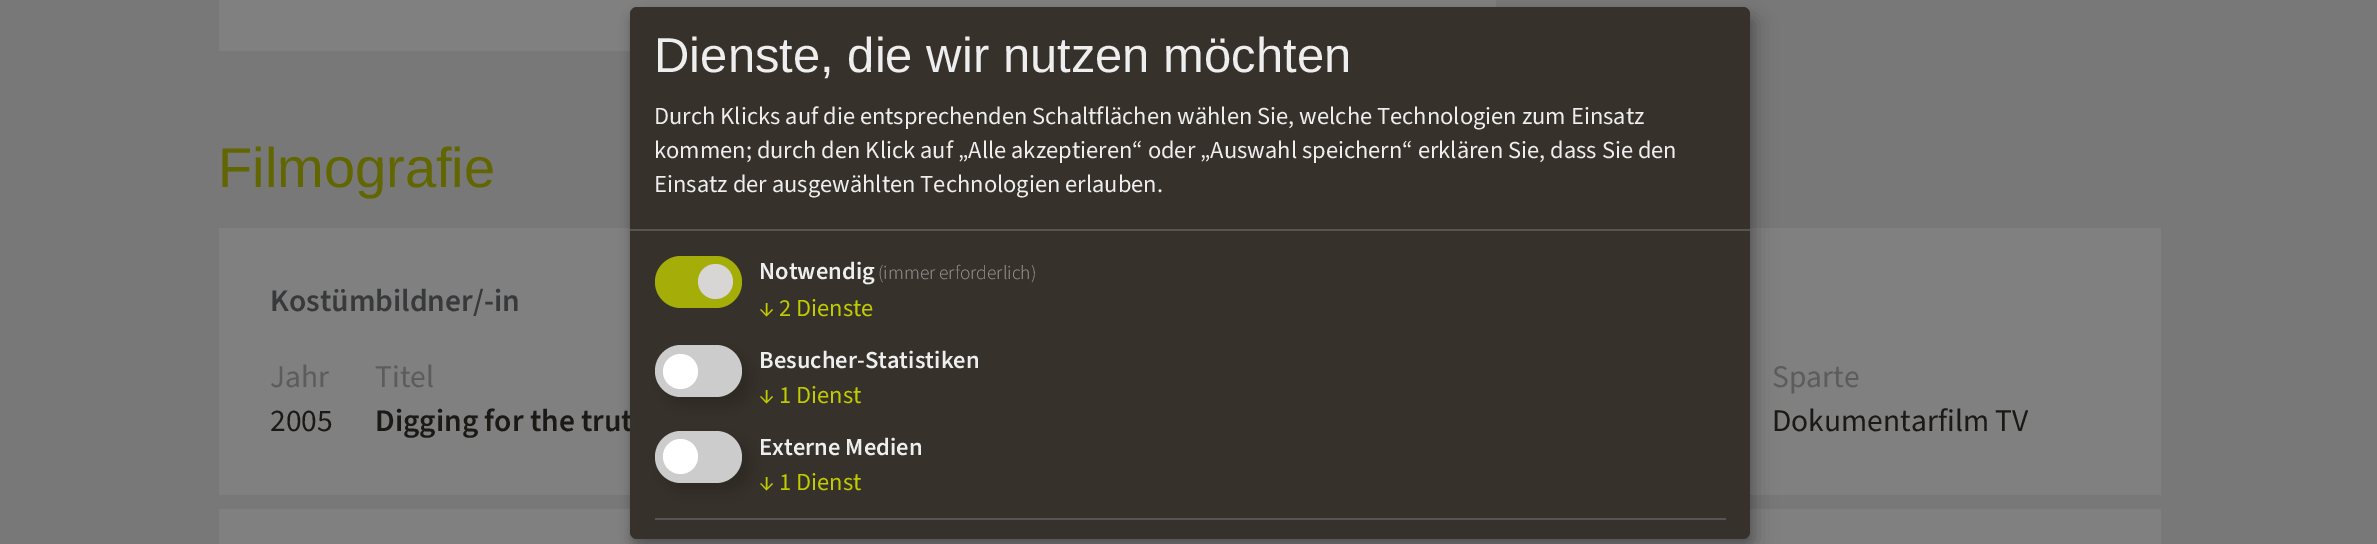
%!PS-Adobe-3.0
%%BoundingBox: 0 0 2377 544
%%LanguageLevel: 3
%%Pages: 1
%%EndComments
%%BeginProlog
/setalpha { dup .setfillconstantalpha .setstrokeconstantalpha } def
/rrect { 5 dict begin { /r /h /w /y /x } { exch def } forall
  x r add y moveto x w add y 2 copy h add r arct x w add y h add x 1 index r arct
  x y h add x y r arct x y 2 copy exch w add exch r arct closepath end } def
/softshadow { 12 dict begin { /a /b /q /h /w /y /x } { exch def } forall gsave /was 0 def
  9 -2 -9 { dup b mul 4 div /e exch def 1 sub .425 mul 2.718 exch exp 1 add a .99 .min exch div /now exch def
    1 1 now sub 1 was sub div sub setalpha /was now def
    w h .min e 2 mul add 0 gt { x e sub y e sub w e 2 mul add h e 2 mul add
      q e add b .6 mul add w h .min 2 div e add .min 0 .max rrect fill } if } for grestore end } def
%%EndProlog
%%BeginSetup
<< /PageSize [2377 544] /PageUsesTransparency true >> setpagedevice
%%EndSetup
%%Page: 1 1
0 .pushpdf14devicefilter
0 544 translate 1 -1 scale
4 setmiterlimit
0.471 0.471 0.475 setrgbcolor
0 0 2377 544 rectfill
0.502 setgray
219 0 1277 51 rectfill
219 228 1942 267 rectfill
219 509 1942 35 rectfill
0 setgray
639 16 1120 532 7 9 0.19 softshadow
630 14 1120 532 7 5 0.2 softshadow
/LiberationSans-Regular [56 0 0 -56 0 0] selectfont
0.38 0.4 0 setrgbcolor
218 187 moveto (Filmografie) show
/SourceSans3-SemiBold [31.5 0 0 -31.5 0 0] selectfont
0.22 0.224 0.227 setrgbcolor
270 311 moveto (Kostümbildner/-in) show
/SourceSans3-Regular [31.5 0 0 -31.5 0 0] selectfont
0.361 setgray
270 387 moveto (Jahr) show
375 387 moveto (Titel) show
1772 387 moveto (Sparte) show
0.106 0.098 0.086 setrgbcolor
270 431 moveto (2005) show
/SourceSans3-SemiBold [31.5 0 0 -31.5 0 0] selectfont
375 431 moveto (Digging for the trut) show
0.212 0.192 0.169 setrgbcolor
630 7 1120 532 7 rrect fill
0 setgray
663 439 88 53 26.5 9 0.19 softshadow
0.333 setgray
655 518 1071 2 rectfill
0 setgray
663 354 88 52 26 9 0.19 softshadow
0.8 setgray
655 431 87 52 26 rrect fill
1 setgray
newpath 680.5 456.5 17.5 0 360 arc closepath fill
/SourceSans3-Regular [24.5 0 0 -24.5 0 0] selectfont
0.757 0.8 0 setrgbcolor
759 490 moveto (↓ 1 Dienst) show
/SourceSans3-SemiBold [24.5 0 0 -24.5 0 0] selectfont
0.933 setgray
759 455 moveto (Externe Medien) show
0.8 setgray
655 345 87 52 26 rrect fill
1 setgray
newpath 680.5 371.5 17.5 0 360 arc closepath fill
/SourceSans3-Regular [24.5 0 0 -24.5 0 0] selectfont
0.757 0.8 0 setrgbcolor
759 403 moveto (↓ 1 Dienst) show
/SourceSans3-SemiBold [24.5 0 0 -24.5 0 0] selectfont
0.933 setgray
759 368 moveto (Besucher-Statistiken) show
0.647 0.678 0.035 setrgbcolor
655 256 87 52 26 rrect fill
0.843 0.839 0.835 setrgbcolor
newpath 715.5 281.5 17.5 0 360 arc closepath fill
/SourceSans3-Regular [24.5 0 0 -24.5 0 0] selectfont
0.757 0.8 0 setrgbcolor
759 316 moveto (↓ 2 Dienste) show
/SourceSans3-Light [19.5 0 0 -19.5 0 0] selectfont
0.6 setgray
878 279 moveto (\(immer erforderlich\)) show
/SourceSans3-SemiBold [24.5 0 0 -24.5 0 0] selectfont
0.933 setgray
759 279 moveto (Notwendig) show
/SourceSans3-Regular [24.5 0 0 -24.5 0 0] selectfont
654 192 moveto (Einsatz der ausgewählten Technologien erlauben.) show
654 158 moveto (kommen; durch den Klick auf „Alle akzeptieren“ oder „Auswahl speichern“ erklären Sie, dass Sie den) show
654 124 moveto (Durch Klicks auf die entsprechenden Schaltflächen wählen Sie, welche Technologien zum Einsatz) show
/LiberationSans-Regular [49 0 0 -49 0 0] selectfont
654 72 moveto (Dienste, die wir nutzen möchten) show
0.333 setgray
630 229 1120 2 rectfill
/SourceSans3-Regular [31.5 0 0 -31.5 0 0] selectfont
0.106 0.098 0.086 setrgbcolor
1772 431 moveto (Dokumentarfilm TV) show
.poppdf14devicefilter showpage
%%EOF
